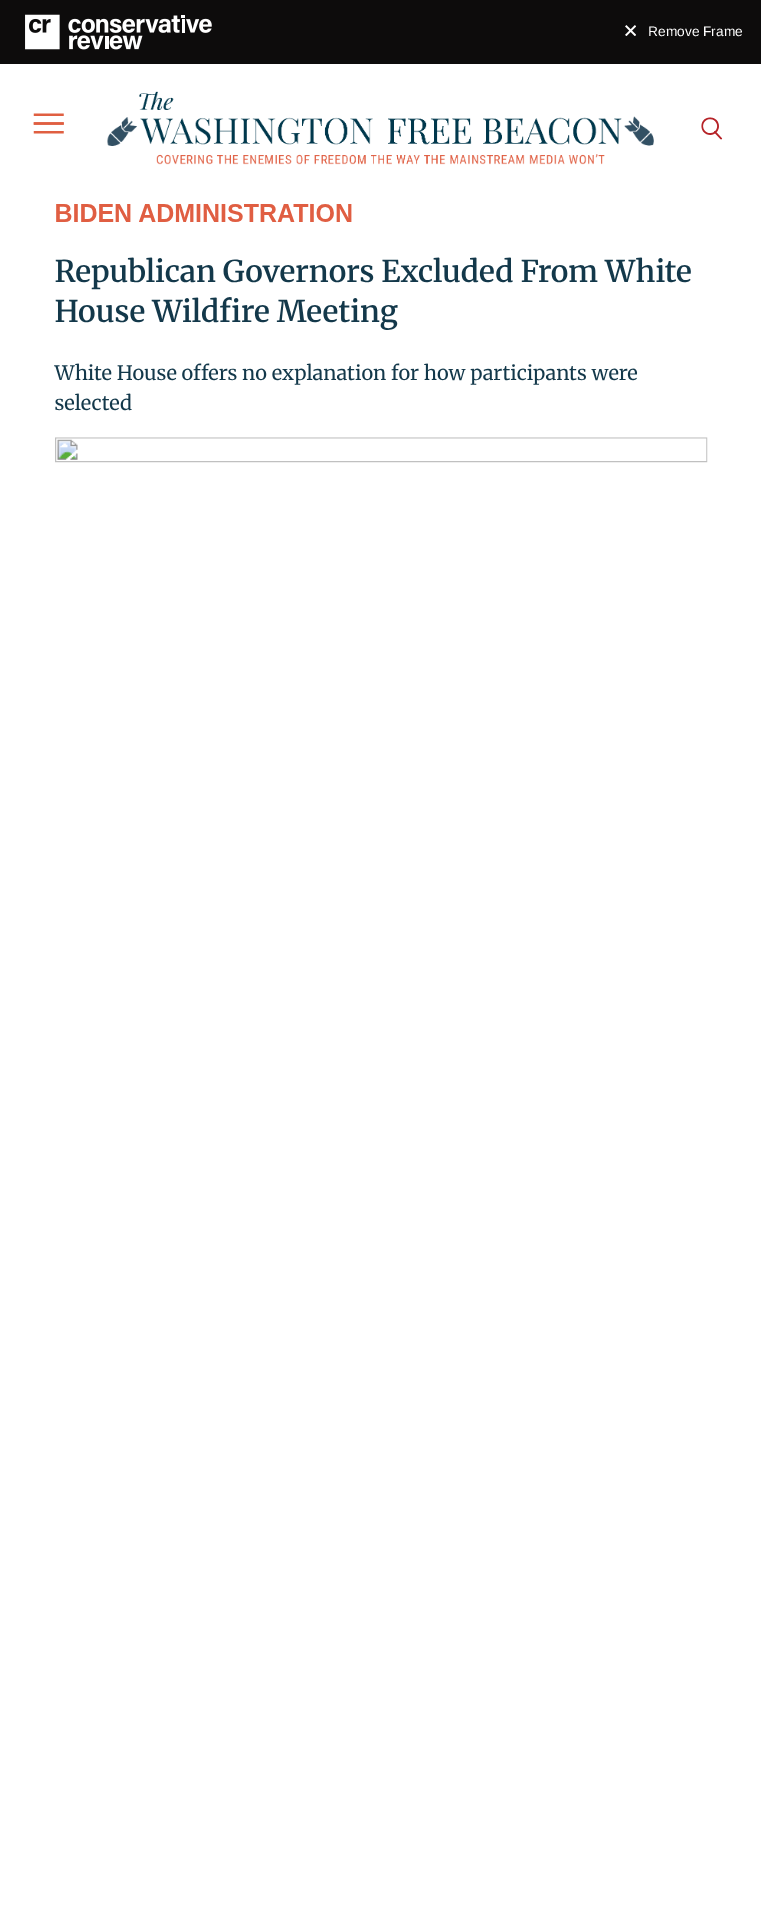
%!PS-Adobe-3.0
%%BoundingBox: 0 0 761 1929
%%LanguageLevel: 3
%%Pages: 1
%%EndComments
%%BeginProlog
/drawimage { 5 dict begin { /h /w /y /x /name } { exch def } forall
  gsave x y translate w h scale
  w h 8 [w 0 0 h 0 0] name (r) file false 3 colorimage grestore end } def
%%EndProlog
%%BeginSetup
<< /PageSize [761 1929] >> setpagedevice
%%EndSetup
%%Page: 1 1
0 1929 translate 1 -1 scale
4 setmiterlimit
1 setgray
0 0 761 1929 rectfill
0.051 0.047 0.047 setrgbcolor
0 0 761 64 rectfill
(images/1.raw) 25 14 187 36 drawimage
(images/2.raw) 625 25 11 11 drawimage
(images/3.raw) 0 67 761 1858 drawimage
/LiberationSans-Regular [13.75 0 0 -13.75 0 0] selectfont
1 setgray
648 36 moveto (Remove Frame) show
showpage
%%EOF
